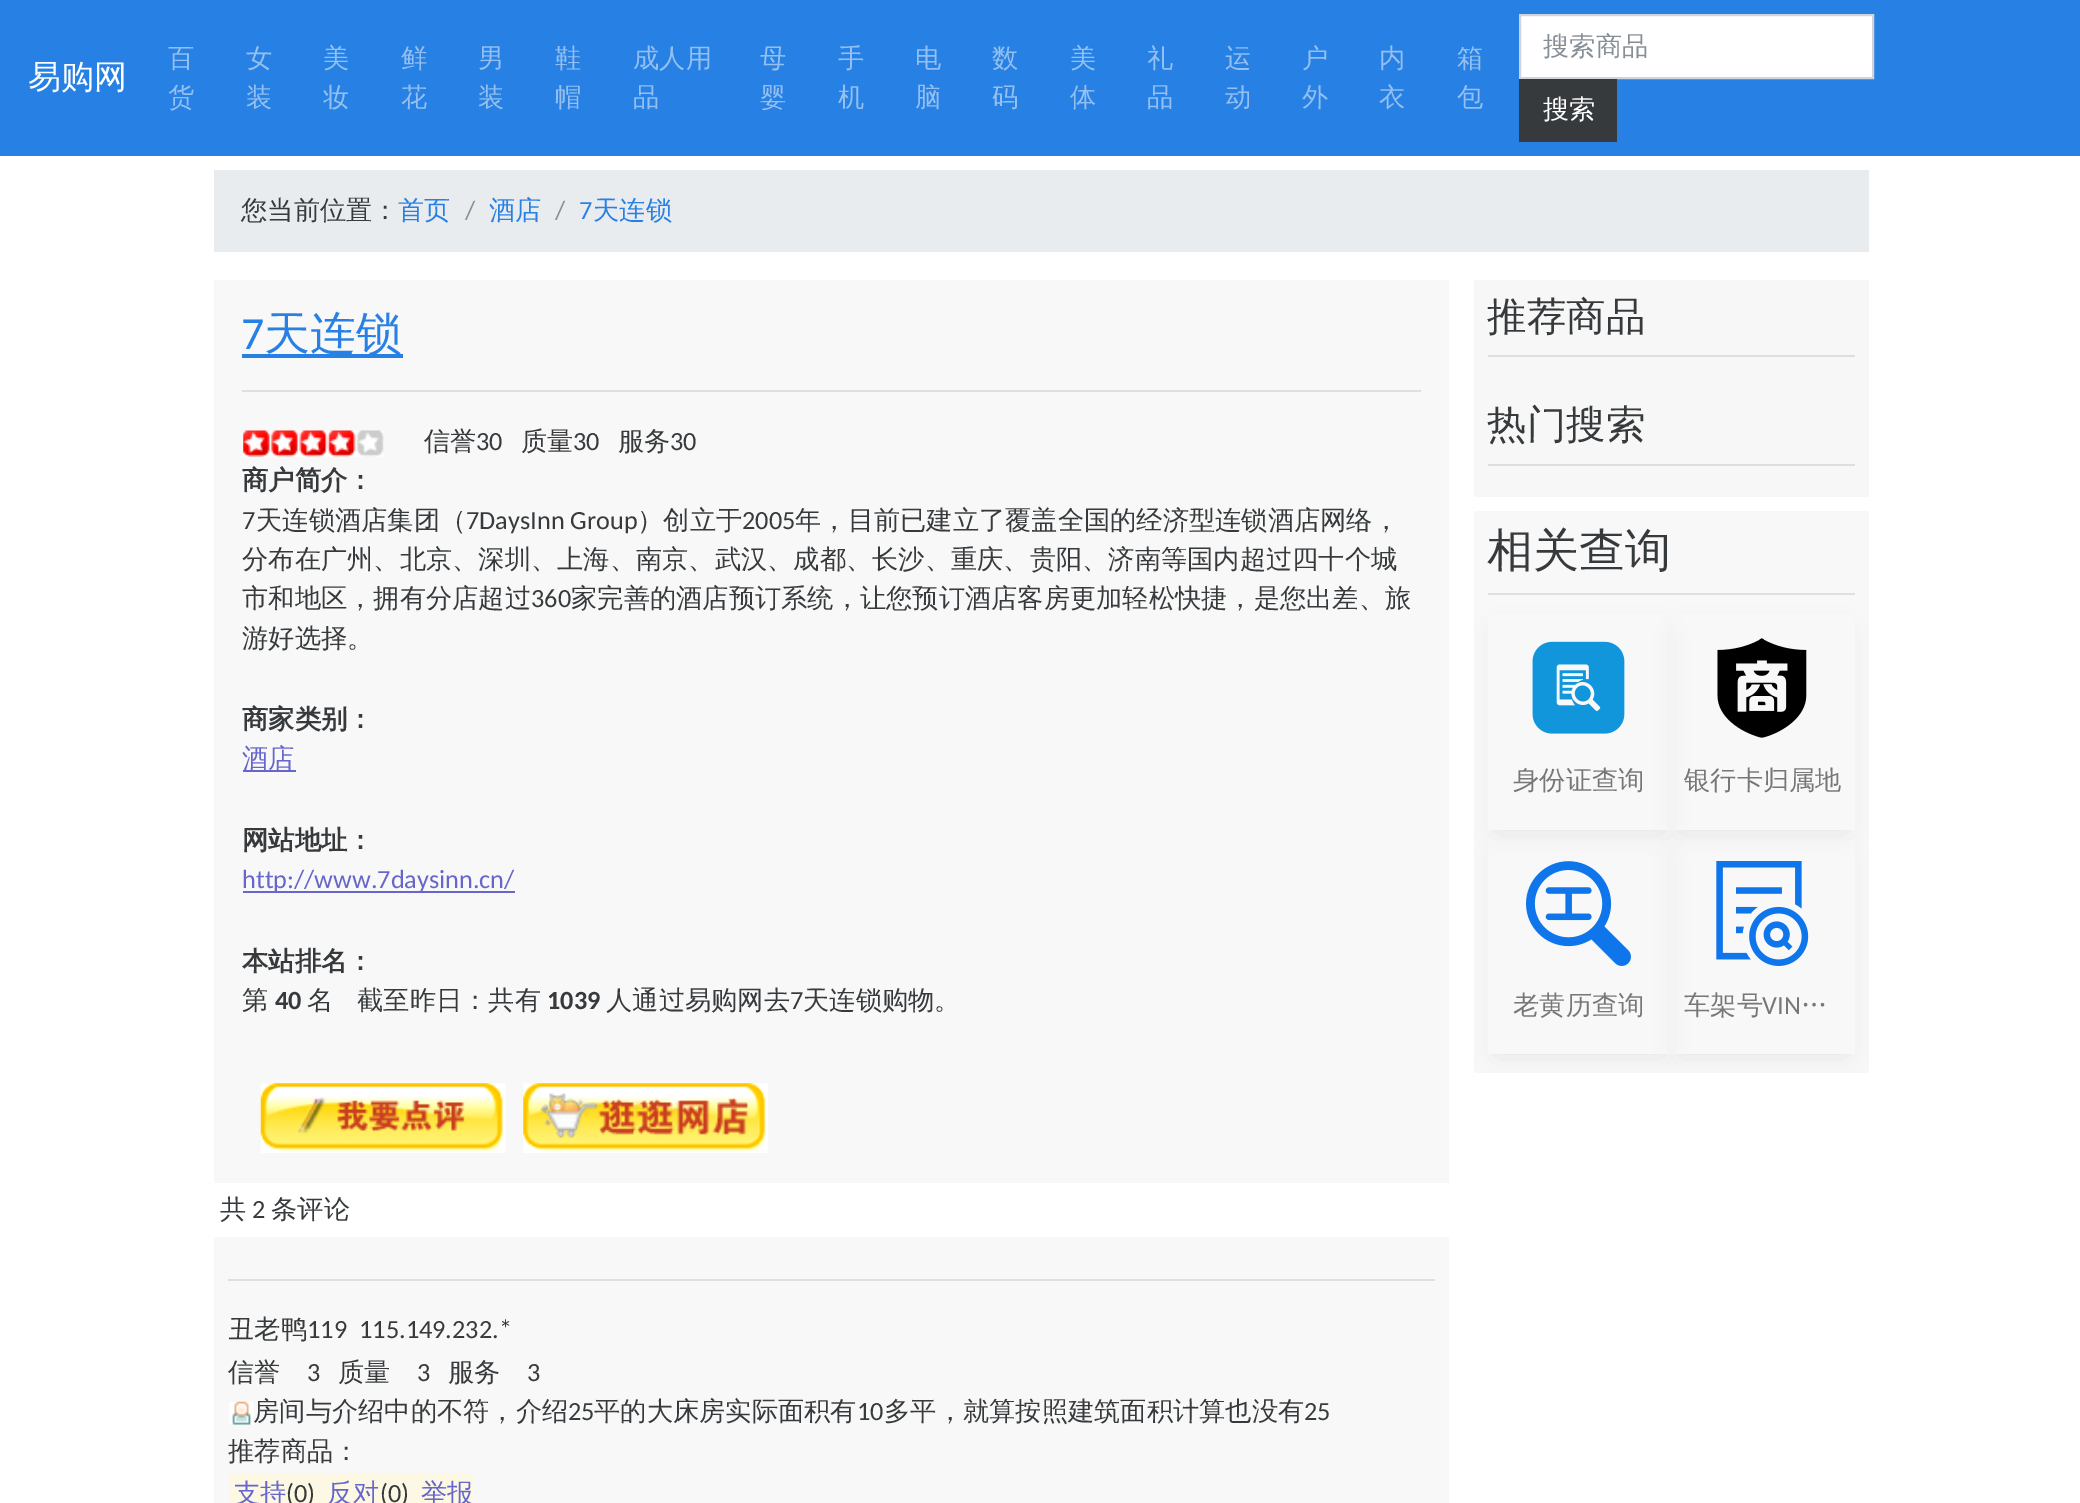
%!PS-Adobe-3.0
%%BoundingBox: 0 0 2080 1503
%%LanguageLevel: 3
%%Pages: 1
%%EndComments
%%BeginProlog
/setalpha { dup .setfillconstantalpha .setstrokeconstantalpha } def
/rrect { 5 dict begin { /r /h /w /y /x } { exch def } forall
  x r add y moveto x w add y 2 copy h add r arct x w add y h add x 1 index r arct
  x y h add x y r arct x y 2 copy exch w add exch r arct closepath end } def
/softshadow { 12 dict begin { /a /b /q /h /w /y /x } { exch def } forall gsave /was 0 def
  9 -2 -9 { dup b mul 4 div /e exch def 1 sub .425 mul 2.718 exch exp 1 add a .99 .min exch div /now exch def
    1 1 now sub 1 was sub div sub setalpha /was now def
    w h .min e 2 mul add 0 gt { x e sub y e sub w e 2 mul add h e 2 mul add
      q e add b .6 mul add w h .min 2 div e add .min 0 .max rrect fill } if } for grestore end } def
/drawimage { 5 dict begin { /h /w /y /x /name } { exch def } forall
  gsave x y translate w h scale
  w h 8 [w 0 0 h 0 0] name (r) file false 3 colorimage grestore end } def
%%EndProlog
%%BeginSetup
<< /PageSize [2080 1503] /PageUsesTransparency true >> setpagedevice
%%EndSetup
%%Page: 1 1
0 .pushpdf14devicefilter
0 1503 translate 1 -1 scale
4 setmiterlimit
1 setgray
0 0 2080 1503 rectfill
0.153 0.502 0.89 setrgbcolor
0 0 2080 156 rectfill
1 setgray
newpath 1520 15 moveto 1873 15 lineto 1873 78 lineto 1520 78 lineto closepath gsave fill grestore
0.808 0.831 0.855 setrgbcolor
2 setlinewidth
stroke
0.216 0.227 0.235 setrgbcolor
1519 79 98 63 rectfill
0.914 0.925 0.937 setrgbcolor
214 170 1655 82 rectfill
0.973 setgray
214 280 1235 903 rectfill
0.153 0.502 0.89 setrgbcolor
242 354 161 4 rectfill
0.875 setgray
242 390 1179 2 rectfill
(images/1.raw) 243 430 141 27 drawimage
0.4 0.4 0.8 setrgbcolor
243 770 53 2 rectfill
243 891 272 2 rectfill
(images/2.raw) 260 1083 246 70 drawimage
(images/3.raw) 523 1083 245 70 drawimage
0.973 setgray
214 1237 1235 266 rectfill
0.875 setgray
228 1279 1207 2 rectfill
(images/4.raw) 229 1401 25 24 drawimage
0.988 0.973 0.89 setrgbcolor
229 1474 244 29 rectfill
0.969 setgray
1474 280 395 217 rectfill
0.871 setgray
1488 355 367 2 rectfill
1488 464 367 2 rectfill
0.973 setgray
1474 511 395 562 rectfill
0.875 setgray
1488 593 367 2 rectfill
gsave
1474 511 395 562 rectclip
newpath 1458 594 moveto 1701 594 lineto 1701 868 lineto 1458 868 lineto closepath 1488 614 moveto 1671 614 lineto 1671 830 lineto 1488 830 lineto closepath eoclip newpath
0.867 setgray
1498 634 163 194 0 13 1 softshadow
grestore
(images/5.raw) 1532 641 93 93 drawimage
gsave
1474 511 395 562 rectclip
newpath 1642 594 moveto 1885 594 lineto 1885 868 lineto 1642 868 lineto closepath 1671 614 moveto 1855 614 lineto 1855 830 lineto 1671 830 lineto closepath eoclip newpath
0.867 setgray
1682 634 163 194 0 13 1 softshadow
grestore
(images/6.raw) 1717 638 90 100 drawimage
gsave
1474 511 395 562 rectclip
newpath 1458 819 moveto 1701 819 lineto 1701 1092 lineto 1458 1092 lineto closepath 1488 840 moveto 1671 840 lineto 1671 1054 lineto 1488 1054 lineto closepath eoclip newpath
0.867 setgray
1498 859 163 193 0 13 1 softshadow
grestore
(images/7.raw) 1526 861 105 105 drawimage
gsave
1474 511 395 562 rectclip
newpath 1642 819 moveto 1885 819 lineto 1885 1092 lineto 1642 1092 lineto closepath 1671 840 moveto 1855 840 lineto 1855 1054 lineto 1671 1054 lineto closepath eoclip newpath
0.867 setgray
1682 859 163 193 0 13 1 softshadow
grestore
(images/8.raw) 1716 861 93 105 drawimage
/WenQuanYiZenHei-Medium [33 0 0 -33 0 0] selectfont
1 setgray
28 88 moveto (易购网) show
/WenQuanYiZenHei-Medium [26.25 0 0 -26.25 0 0] selectfont
0.576 0.753 0.945 setrgbcolor
168 67 moveto (百) show
168 106 moveto (货) show
246 67 moveto (女) show
246 106 moveto (装) show
323 67 moveto (美) show
323 106 moveto (妆) show
401 67 moveto (鲜) show
401 106 moveto (花) show
478 67 moveto (男) show
478 106 moveto (装) show
555 67 moveto (鞋) show
555 106 moveto (帽) show
633 67 moveto (成人用) show
633 106 moveto (品) show
760 67 moveto (母) show
760 106 moveto (婴) show
838 67 moveto (手) show
838 106 moveto (机) show
915 67 moveto (电) show
915 106 moveto (脑) show
992 67 moveto (数) show
992 106 moveto (码) show
1070 67 moveto (美) show
1070 106 moveto (体) show
1147 67 moveto (礼) show
1147 106 moveto (品) show
1225 67 moveto (运) show
1225 106 moveto (动) show
1302 67 moveto (户) show
1302 106 moveto (外) show
1379 67 moveto (内) show
1379 106 moveto (衣) show
1457 67 moveto (箱) show
1457 106 moveto (包) show
0.525 0.557 0.588 setrgbcolor
1543 55 moveto (搜索商品) show
1 setgray
1543 118 moveto (搜索) show
0.216 0.227 0.235 setrgbcolor
241 219 moveto (您当前位置：) show
0.153 0.502 0.89 setrgbcolor
398 219 moveto (首页) show
/Carlito-Regular [26.25 0 0 -26.25 0 0] selectfont
0.525 0.557 0.588 setrgbcolor
465 219 moveto (/) show
/WenQuanYiZenHei-Medium [26.25 0 0 -26.25 0 0] selectfont
0.153 0.502 0.89 setrgbcolor
489 219 moveto (酒店) show
/Carlito-Regular [26.25 0 0 -26.25 0 0] selectfont
0.525 0.557 0.588 setrgbcolor
555 219 moveto (/) show
0.153 0.502 0.89 setrgbcolor
579 219 moveto (7) show
/WenQuanYiZenHei-Medium [26.25 0 0 -26.25 0 0] selectfont
593 219 moveto (天连锁) show
/Carlito-Regular [46 0 0 -46 0 0] selectfont
241 349 moveto (7) show
/WenQuanYiZenHei-Medium [46 0 0 -46 0 0] selectfont
264 349 moveto (天连锁) show
/WenQuanYiZenHei-Medium [26.25 0 0 -26.25 0 0] selectfont
0.216 0.227 0.235 setrgbcolor
424 450 moveto (信誉) show
/Carlito-Regular [26.25 0 0 -26.25 0 0] selectfont
476 450 moveto (30) show
/WenQuanYiZenHei-Medium [26.25 0 0 -26.25 0 0] selectfont
521 450 moveto (质量) show
/Carlito-Regular [26.25 0 0 -26.25 0 0] selectfont
573 450 moveto (30) show
/WenQuanYiZenHei-Medium [26.25 0 0 -26.25 0 0] selectfont
618 450 moveto (服务) show
/Carlito-Regular [26.25 0 0 -26.25 0 0] selectfont
670 450 moveto (30) show
/WenQuanYiZenHei-Bold [26.25 0 0 -26.25 0 0] selectfont
242 489 moveto (商户简介：) show
/Carlito-Regular [26.25 0 0 -26.25 0 0] selectfont
242 529 moveto (7) show
/WenQuanYiZenHei-Medium [26.25 0 0 -26.25 0 0] selectfont
256 529 moveto (天连锁酒店集团（) show
/Carlito-Regular [26.25 0 0 -26.25 0 0] selectfont
466 529 moveto (7DaysInn Group) show
/WenQuanYiZenHei-Medium [26.25 0 0 -26.25 0 0] selectfont
637 529 moveto (）创立于) show
/Carlito-Regular [26.25 0 0 -26.25 0 0] selectfont
742 529 moveto (2005) show
/WenQuanYiZenHei-Medium [26.25 0 0 -26.25 0 0] selectfont
795 529 moveto (年，目前已建立了覆盖全国的经济型连锁酒店网络，) show
242 568 moveto (分布在广州、北京、深圳、上海、南京、武汉、成都、长沙、重庆、贵阳、济南等国内超过四十个城) show
242 607 moveto (市和地区，拥有分店超过) show
/Carlito-Regular [26.25 0 0 -26.25 0 0] selectfont
531 607 moveto (360) show
/WenQuanYiZenHei-Medium [26.25 0 0 -26.25 0 0] selectfont
571 607 moveto (家完善的酒店预订系统，让您预订酒店客房更加轻松快捷，是您出差、旅) show
242 647 moveto (游好选择。) show
/WenQuanYiZenHei-Bold [26.25 0 0 -26.25 0 0] selectfont
242 728 moveto (商家类别：) show
/WenQuanYiZenHei-Medium [26.25 0 0 -26.25 0 0] selectfont
0.4 0.4 0.8 setrgbcolor
242 767 moveto (酒店) show
/WenQuanYiZenHei-Bold [26.25 0 0 -26.25 0 0] selectfont
0.216 0.227 0.235 setrgbcolor
242 849 moveto (网站地址：) show
/Carlito-Regular [26.25 0 0 -26.25 0 0] selectfont
0.4 0.4 0.8 setrgbcolor
242 888 moveto (http://www.7daysinn.cn/) show
/WenQuanYiZenHei-Bold [26.25 0 0 -26.25 0 0] selectfont
0.216 0.227 0.235 setrgbcolor
242 970 moveto (本站排名：) show
/WenQuanYiZenHei-Medium [26.25 0 0 -26.25 0 0] selectfont
242 1009 moveto (第) show
/Carlito-Bold [26.25 0 0 -26.25 0 0] selectfont
275 1009 moveto (40) show
/WenQuanYiZenHei-Medium [26.25 0 0 -26.25 0 0] selectfont
307 1009 moveto (名) show
357 1009 moveto (截至昨日：共有) show
/Carlito-Bold [26.25 0 0 -26.25 0 0] selectfont
547 1009 moveto (1039) show
/WenQuanYiZenHei-Medium [26.25 0 0 -26.25 0 0] selectfont
606 1009 moveto (人通过易购网去) show
/Carlito-Regular [26.25 0 0 -26.25 0 0] selectfont
790 1009 moveto (7) show
/WenQuanYiZenHei-Medium [26.25 0 0 -26.25 0 0] selectfont
803 1009 moveto (天连锁购物。) show
220 1218 moveto (共) show
/Carlito-Regular [26.25 0 0 -26.25 0 0] selectfont
252 1218 moveto (2) show
/WenQuanYiZenHei-Medium [26.25 0 0 -26.25 0 0] selectfont
271 1218 moveto (条评论) show
228 1338 moveto (丑老鸭) show
/Carlito-Regular [26.25 0 0 -26.25 0 0] selectfont
307 1338 moveto (119) show
359 1338 moveto (115.149.232.*) show
/WenQuanYiZenHei-Medium [26.25 0 0 -26.25 0 0] selectfont
228 1381 moveto (信誉) show
/Carlito-Regular [26.25 0 0 -26.25 0 0] selectfont
307 1381 moveto (3) show
/WenQuanYiZenHei-Medium [26.25 0 0 -26.25 0 0] selectfont
338 1381 moveto (质量) show
/Carlito-Regular [26.25 0 0 -26.25 0 0] selectfont
417 1381 moveto (3) show
/WenQuanYiZenHei-Medium [26.25 0 0 -26.25 0 0] selectfont
448 1381 moveto (服务) show
/Carlito-Regular [26.25 0 0 -26.25 0 0] selectfont
527 1381 moveto (3) show
/WenQuanYiZenHei-Medium [26.25 0 0 -26.25 0 0] selectfont
253 1420 moveto (房间与介绍中的不符，介绍) show
/Carlito-Regular [26.25 0 0 -26.25 0 0] selectfont
568 1420 moveto (25) show
/WenQuanYiZenHei-Medium [26.25 0 0 -26.25 0 0] selectfont
594 1420 moveto (平的大床房实际面积有) show
/Carlito-Regular [26.25 0 0 -26.25 0 0] selectfont
857 1420 moveto (10) show
/WenQuanYiZenHei-Medium [26.25 0 0 -26.25 0 0] selectfont
884 1420 moveto (多平，就算按照建筑面积计算也没有) show
/Carlito-Regular [26.25 0 0 -26.25 0 0] selectfont
1304 1420 moveto (25) show
/WenQuanYiZenHei-Medium [26.25 0 0 -26.25 0 0] selectfont
228 1460 moveto (推荐商品：) show
0.4 0.4 0.8 setrgbcolor
234 1502 moveto (支持) show
/Carlito-Regular [26.25 0 0 -26.25 0 0] selectfont
0.216 0.227 0.235 setrgbcolor
286 1502 moveto (\(0\)) show
/WenQuanYiZenHei-Medium [26.25 0 0 -26.25 0 0] selectfont
0.4 0.4 0.8 setrgbcolor
327 1502 moveto (反对) show
/Carlito-Regular [26.25 0 0 -26.25 0 0] selectfont
0.216 0.227 0.235 setrgbcolor
380 1502 moveto (\(0\)) show
/WenQuanYiZenHei-Medium [26.25 0 0 -26.25 0 0] selectfont
0.4 0.4 0.8 setrgbcolor
421 1502 moveto (举报) show
/WenQuanYiZenHei-Medium [39.5 0 0 -39.5 0 0] selectfont
0.216 0.227 0.235 setrgbcolor
1487 330 moveto (推荐商品) show
1487 438 moveto (热门搜索) show
/WenQuanYiZenHei-Medium [46 0 0 -46 0 0] selectfont
1487 566 moveto (相关查询) show
/WenQuanYiZenHei-Medium [26.25 0 0 -26.25 0 0] selectfont
0.467 setgray
1513 789 moveto (身份证查询) show
1684 789 moveto (银行卡归属地) show
1513 1014 moveto (老黄历查询) show
1684 1014 moveto (车架号) show
/Carlito-Regular [26.25 0 0 -26.25 0 0] selectfont
1762 1014 moveto (VIN) show
/WenQuanYiZenHei-Medium [26.25 0 0 -26.25 0 0] selectfont
1801 1014 moveto (…) show
.poppdf14devicefilter showpage
%%EOF
